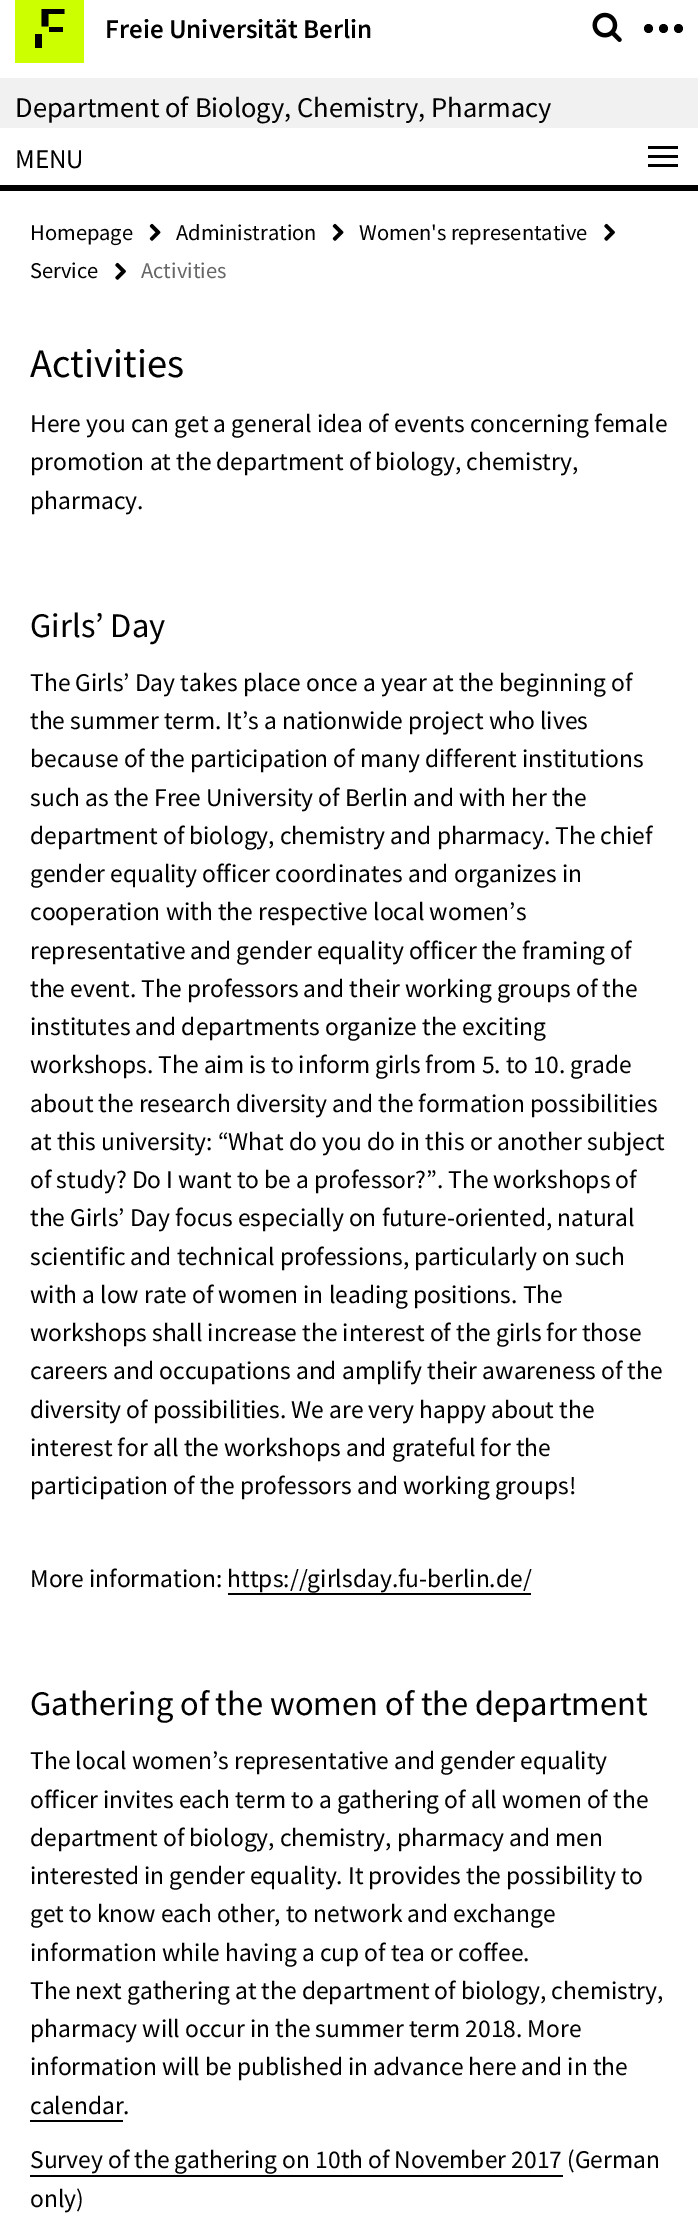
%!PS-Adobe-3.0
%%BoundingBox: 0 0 698 2219
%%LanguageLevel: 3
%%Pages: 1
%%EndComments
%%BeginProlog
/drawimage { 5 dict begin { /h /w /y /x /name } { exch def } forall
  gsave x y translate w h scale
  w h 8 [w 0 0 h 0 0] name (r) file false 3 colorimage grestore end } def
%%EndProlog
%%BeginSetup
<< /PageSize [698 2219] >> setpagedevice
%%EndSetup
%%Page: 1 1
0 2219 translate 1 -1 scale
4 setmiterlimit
1 setgray
0 0 698 2219 rectfill
0.8 1 0 setrgbcolor
15 0 69 63 rectfill
0 setgray
newpath 41.5 9 moveto 64.5 9 lineto 64.5 14 lineto 48.5 14 lineto 48.5 26.5 lineto 41.5 26.5 lineto closepath fill
49 27 14 5 rectfill
35 34 7 14 rectfill
(images/1.raw) 592 12 30 30 drawimage
newpath 648.5 28.5 4.5 0 360 arc closepath fill
newpath 663.5 28.5 4.5 0 360 arc closepath fill
newpath 678.5 28.5 4.5 0 360 arc closepath fill
0.945 setgray
0 78 698 50 rectfill
0 setgray
0 185 698 6 rectfill
648 146 30 3 rectfill
648 155 30 3 rectfill
648 164 30 3 rectfill
(images/2.raw) 149 223 12 18 drawimage
(images/2.raw) 332 223 12 18 drawimage
(images/3.raw) 604 223 11 18 drawimage
(images/3.raw) 115 262 11 18 drawimage
228 1593 303 2 rectfill
30 2120 93 2 rectfill
30 2175 533 2 rectfill
/SourceSansPro-SemiBold [27 0 0 -27 0 0] selectfont
105 38 moveto (Freie Universität Berlin) show
/SourceSansPro-Regular [28.5 0 0 -28.5 0 0] selectfont
15 117 moveto (Department of Biology, Chemistry, Pharmacy) show
/SourceSansPro-Regular [27 0 0 -27 0 0] selectfont
15 168 moveto (MENU) show
/SourceSansPro-Regular [22.5 0 0 -22.5 0 0] selectfont
30 240 moveto (Homepage) show
176 240 moveto (Administration) show
359 240 moveto (Women's representative) show
30 278 moveto (Service) show
0.4 setgray
141 278 moveto (Activities) show
/SourceSansPro-Regular [40.5 0 0 -40.5 0 0] selectfont
0 setgray
30 377 moveto (Activities) show
/SourceSansPro-Regular [25.5 0 0 -25.5 0 0] selectfont
30 432 moveto (Here you can get a general idea of events concerning female) show
30 470 moveto (promotion at the department of biology, chemistry,) show
30 509 moveto (pharmacy.) show
/SourceSansPro-Regular [34.5 0 0 -34.5 0 0] selectfont
30 637 moveto (Girls’ Day) show
/SourceSansPro-Regular [25.5 0 0 -25.5 0 0] selectfont
30 691 moveto (The Girls’ Day takes place once a year at the beginning of) show
30 729 moveto (the summer term. It’s a nationwide project who lives) show
30 767 moveto (because of the participation of many different institutions) show
30 806 moveto (such as the Free University of Berlin and with her the) show
30 844 moveto (department of biology, chemistry and pharmacy. The chief) show
30 882 moveto (gender equality officer coordinates and organizes in) show
30 920 moveto (cooperation with the respective local women’s) show
30 959 moveto (representative and gender equality officer the framing of) show
30 997 moveto (the event. The professors and their working groups of the) show
30 1035 moveto (institutes and departments organize the exciting) show
30 1073 moveto (workshops. The aim is to inform girls from 5. to 10. grade) show
30 1112 moveto (about the research diversity and the formation possibilities) show
30 1150 moveto (at this university: “What do you do in this or another subject) show
30 1188 moveto (of study? Do I want to be a professor?”. The workshops of) show
30 1226 moveto (the Girls’ Day focus especially on future-oriented, natural) show
30 1265 moveto (scientific and technical professions, particularly on such) show
30 1303 moveto (with a low rate of women in leading positions. The) show
30 1341 moveto (workshops shall increase the interest of the girls for those) show
30 1379 moveto (careers and occupations and amplify their awareness of the) show
30 1418 moveto (diversity of possibilities. We are very happy about the) show
30 1456 moveto (interest for all the workshops and grateful for the) show
30 1494 moveto (participation of the professors and working groups!) show
30 1587 moveto (More information: https://girlsday.fu-berlin.de/) show
/SourceSansPro-Regular [34.5 0 0 -34.5 0 0] selectfont
30 1715 moveto (Gathering of the women of the department) show
/SourceSansPro-Regular [25.5 0 0 -25.5 0 0] selectfont
30 1769 moveto (The local women’s representative and gender equality) show
30 1808 moveto (officer invites each term to a gathering of all women of the) show
30 1846 moveto (department of biology, chemistry, pharmacy and men) show
30 1884 moveto (interested in gender equality. It provides the possibility to) show
30 1922 moveto (get to know each other, to network and exchange) show
30 1961 moveto (information while having a cup of tea or coffee.) show
30 1999 moveto (The next gathering at the department of biology, chemistry,) show
30 2037 moveto (pharmacy will occur in the summer term 2018. More) show
30 2075 moveto (information will be published in advance here and in the) show
30 2114 moveto (calendar.) show
30 2168 moveto (Survey of the gathering on 10th of November 2017 \(German) show
30 2207 moveto (only\)) show
showpage
%%EOF
